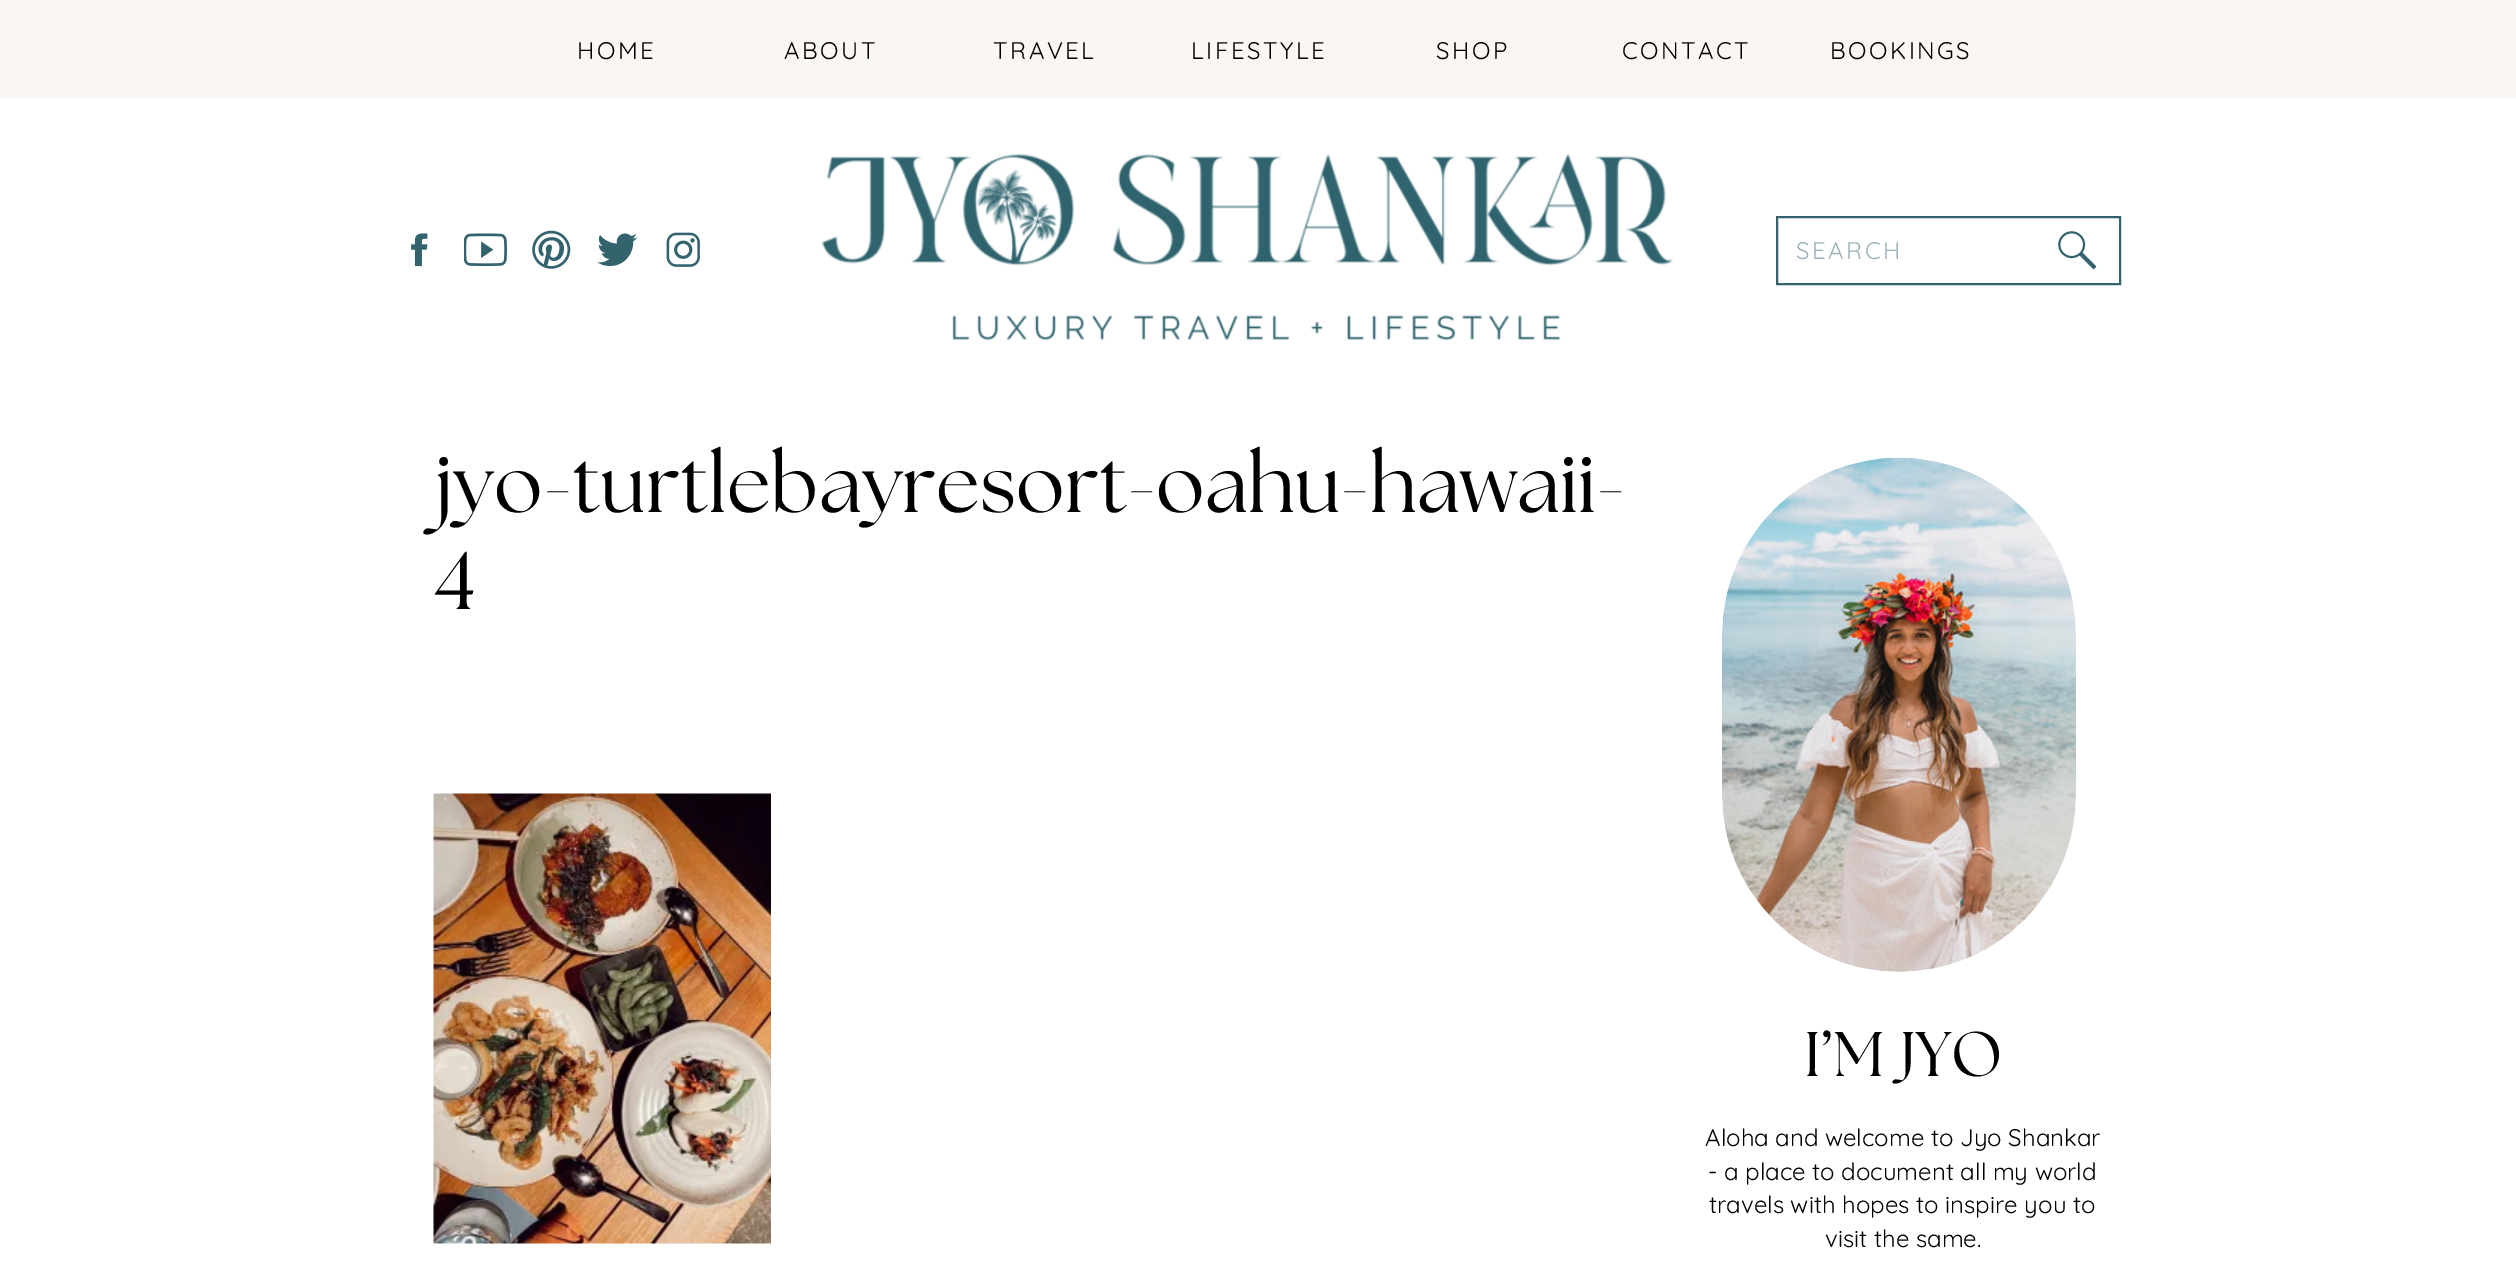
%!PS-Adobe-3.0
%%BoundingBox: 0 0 2516 1268
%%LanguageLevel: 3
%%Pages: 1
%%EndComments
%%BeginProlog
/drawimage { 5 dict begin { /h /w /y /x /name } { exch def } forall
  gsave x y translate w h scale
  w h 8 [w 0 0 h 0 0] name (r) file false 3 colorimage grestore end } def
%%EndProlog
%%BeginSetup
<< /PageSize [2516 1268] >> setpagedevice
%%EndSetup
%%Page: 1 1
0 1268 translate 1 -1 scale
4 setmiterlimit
1 setgray
0 0 2516 1268 rectfill
0.98 0.965 0.945 setrgbcolor
0 0 2516 98 rectfill
(images/1.raw) 532 230 39 39 drawimage
(images/2.raw) 821 154 852 187 drawimage
0.2 0.392 0.431 setrgbcolor
2 setlinewidth
1777 217 343 67 rectstroke
(images/3.raw) 411 233 17 34 drawimage
(images/4.raw) 464 233 43 34 drawimage
(images/5.raw) 597 233 41 34 drawimage
(images/6.raw) 666 232 34 35 drawimage
(images/7.raw) 2058 231 39 39 drawimage
(images/8.raw) 433 793 338 451 drawimage
(images/9.raw) 1722 457 354 515 drawimage
/Quicksand-Light [24 0 0 -24 0 0] selectfont
0 setgray
577 59 moveto 2.5 0 (HOME) ashow
784 59 moveto 2.5 0 (ABOUT) ashow
993 59 moveto 2.5 0 (TRAVEL) ashow
1191 59 moveto 2.5 0 (LIFESTYLE) ashow
1436 59 moveto 2.5 0 (SHOP) ashow
1622 59 moveto 2.5 0 (CONTACT) ashow
1830 59 moveto 2.5 0 (BOOKINGS) ashow
0.6 0.698 0.718 setrgbcolor
1796 259 moveto 2.5 0 (SEARCH) ashow
/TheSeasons-Regular [81 0 0 -81 0 0] selectfont
0 setgray
434 512 moveto (jyo-turtlebayresort-oahu-hawaii-) show
434 609 moveto (4) show
/TheSeasons-Regular [63 0 0 -63 0 0] selectfont
1804 1076 moveto (I’M JYO) show
/Quicksand-Light [24 0 0 -24 0 0] selectfont
1705 1146 moveto (Aloha and welcome to Jyo Shankar) show
1708 1180 moveto (- a place to document all my world) show
1709 1213 moveto (travels with hopes to inspire you to) show
1825 1247 moveto (visit the same.) show
showpage
%%EOF
